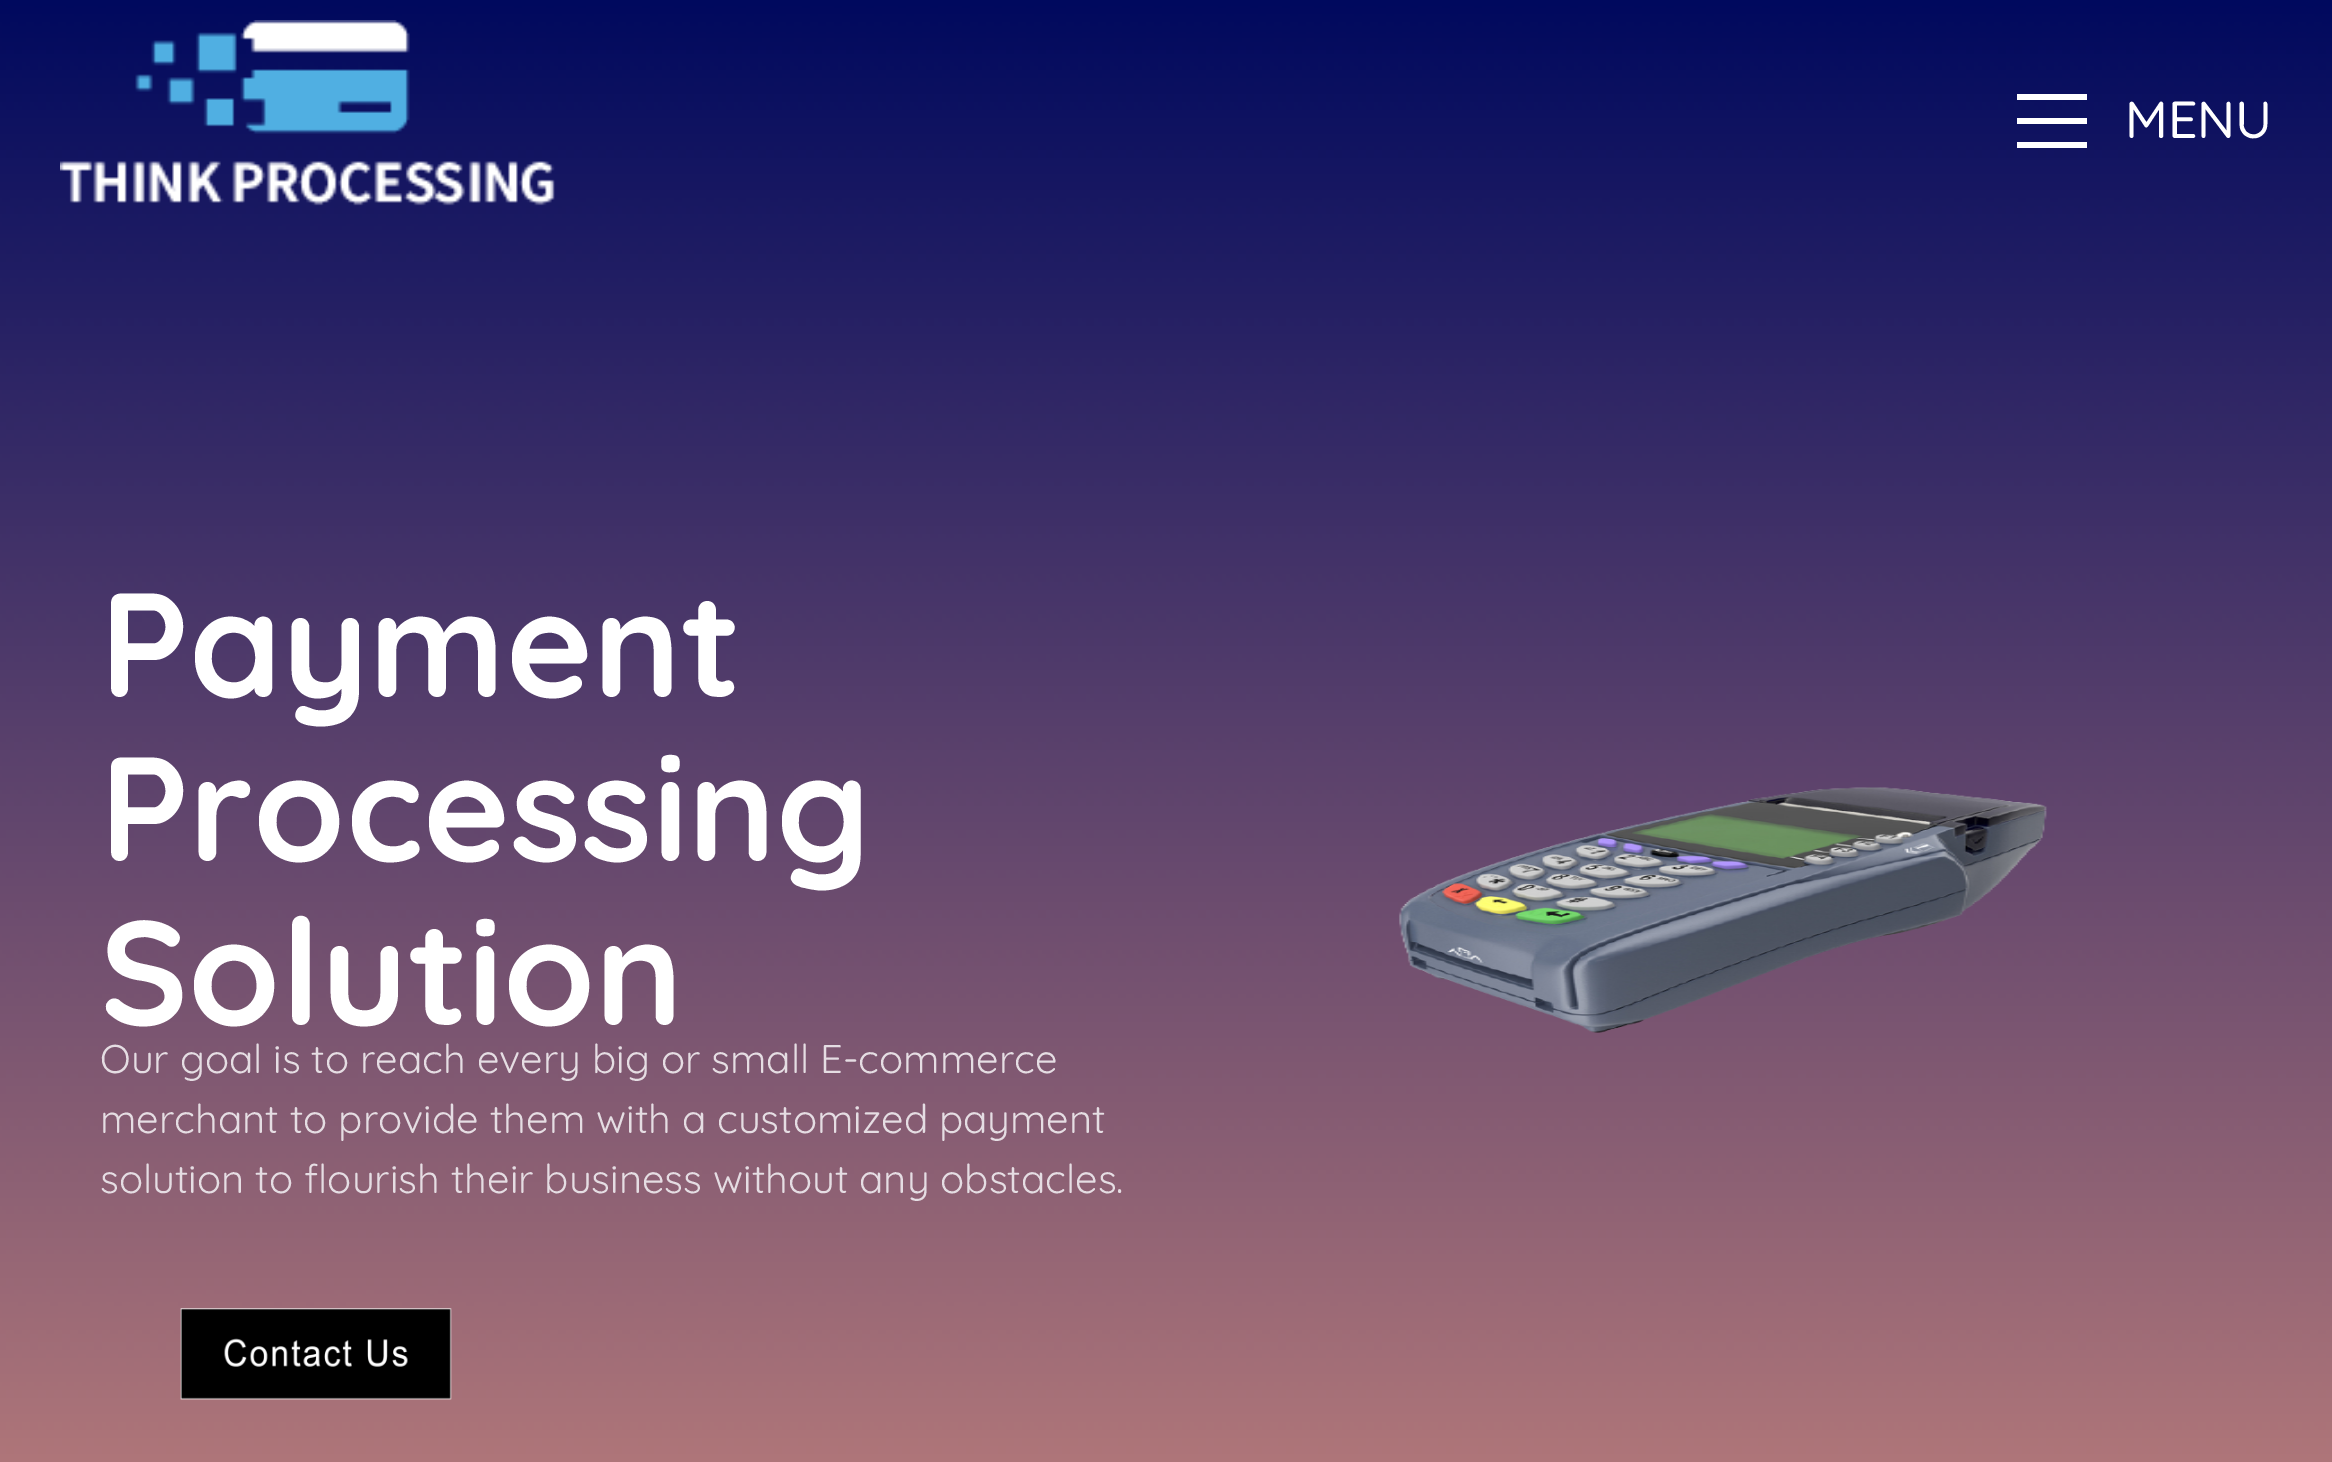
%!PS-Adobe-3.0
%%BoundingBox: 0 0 2332 1462
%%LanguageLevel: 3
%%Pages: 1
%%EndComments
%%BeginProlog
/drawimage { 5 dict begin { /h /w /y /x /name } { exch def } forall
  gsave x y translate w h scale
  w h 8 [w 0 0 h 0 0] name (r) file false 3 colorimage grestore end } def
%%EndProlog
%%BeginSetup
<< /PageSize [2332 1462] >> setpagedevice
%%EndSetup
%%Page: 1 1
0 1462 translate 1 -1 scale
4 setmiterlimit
1 setgray
0 0 2332 1462 rectfill
(images/2.raw) 0 0 2332 1462 drawimage
(images/1.raw) 60 20 495 186 drawimage
newpath 2017 100 moveto 2087 100 lineto 2087 94 lineto 2017 94 lineto closepath 2017 124 moveto 2087 124 lineto 2087 118 lineto 2017 118 lineto closepath 2017 148 moveto 2087 148 lineto 2087 142 lineto 2017 142 lineto closepath fill
(images/3.raw) 1399 787 648 246 drawimage
(images/4.raw) 180 1308 272 92 drawimage
/Quicksand-Medium [52 0 0 -52 0 0] selectfont
2125 138 moveto (MENU) show
/Quicksand-Bold [148 0 0 -148 0 0] selectfont
100 697 moveto (Payment) show
100 861 moveto (Processing) show
100 1025 moveto (Solution) show
/Quicksand-Regular [40 0 0 -40 0 0] selectfont
0.898 0.867 0.89 setrgbcolor
100 1073 moveto (Our goal is to reach every big or small E-commerce) show
100 1133 moveto (merchant to provide them with a customized payment) show
100 1193 moveto (solution to flourish their business without any obstacles.) show
showpage
%%EOF
